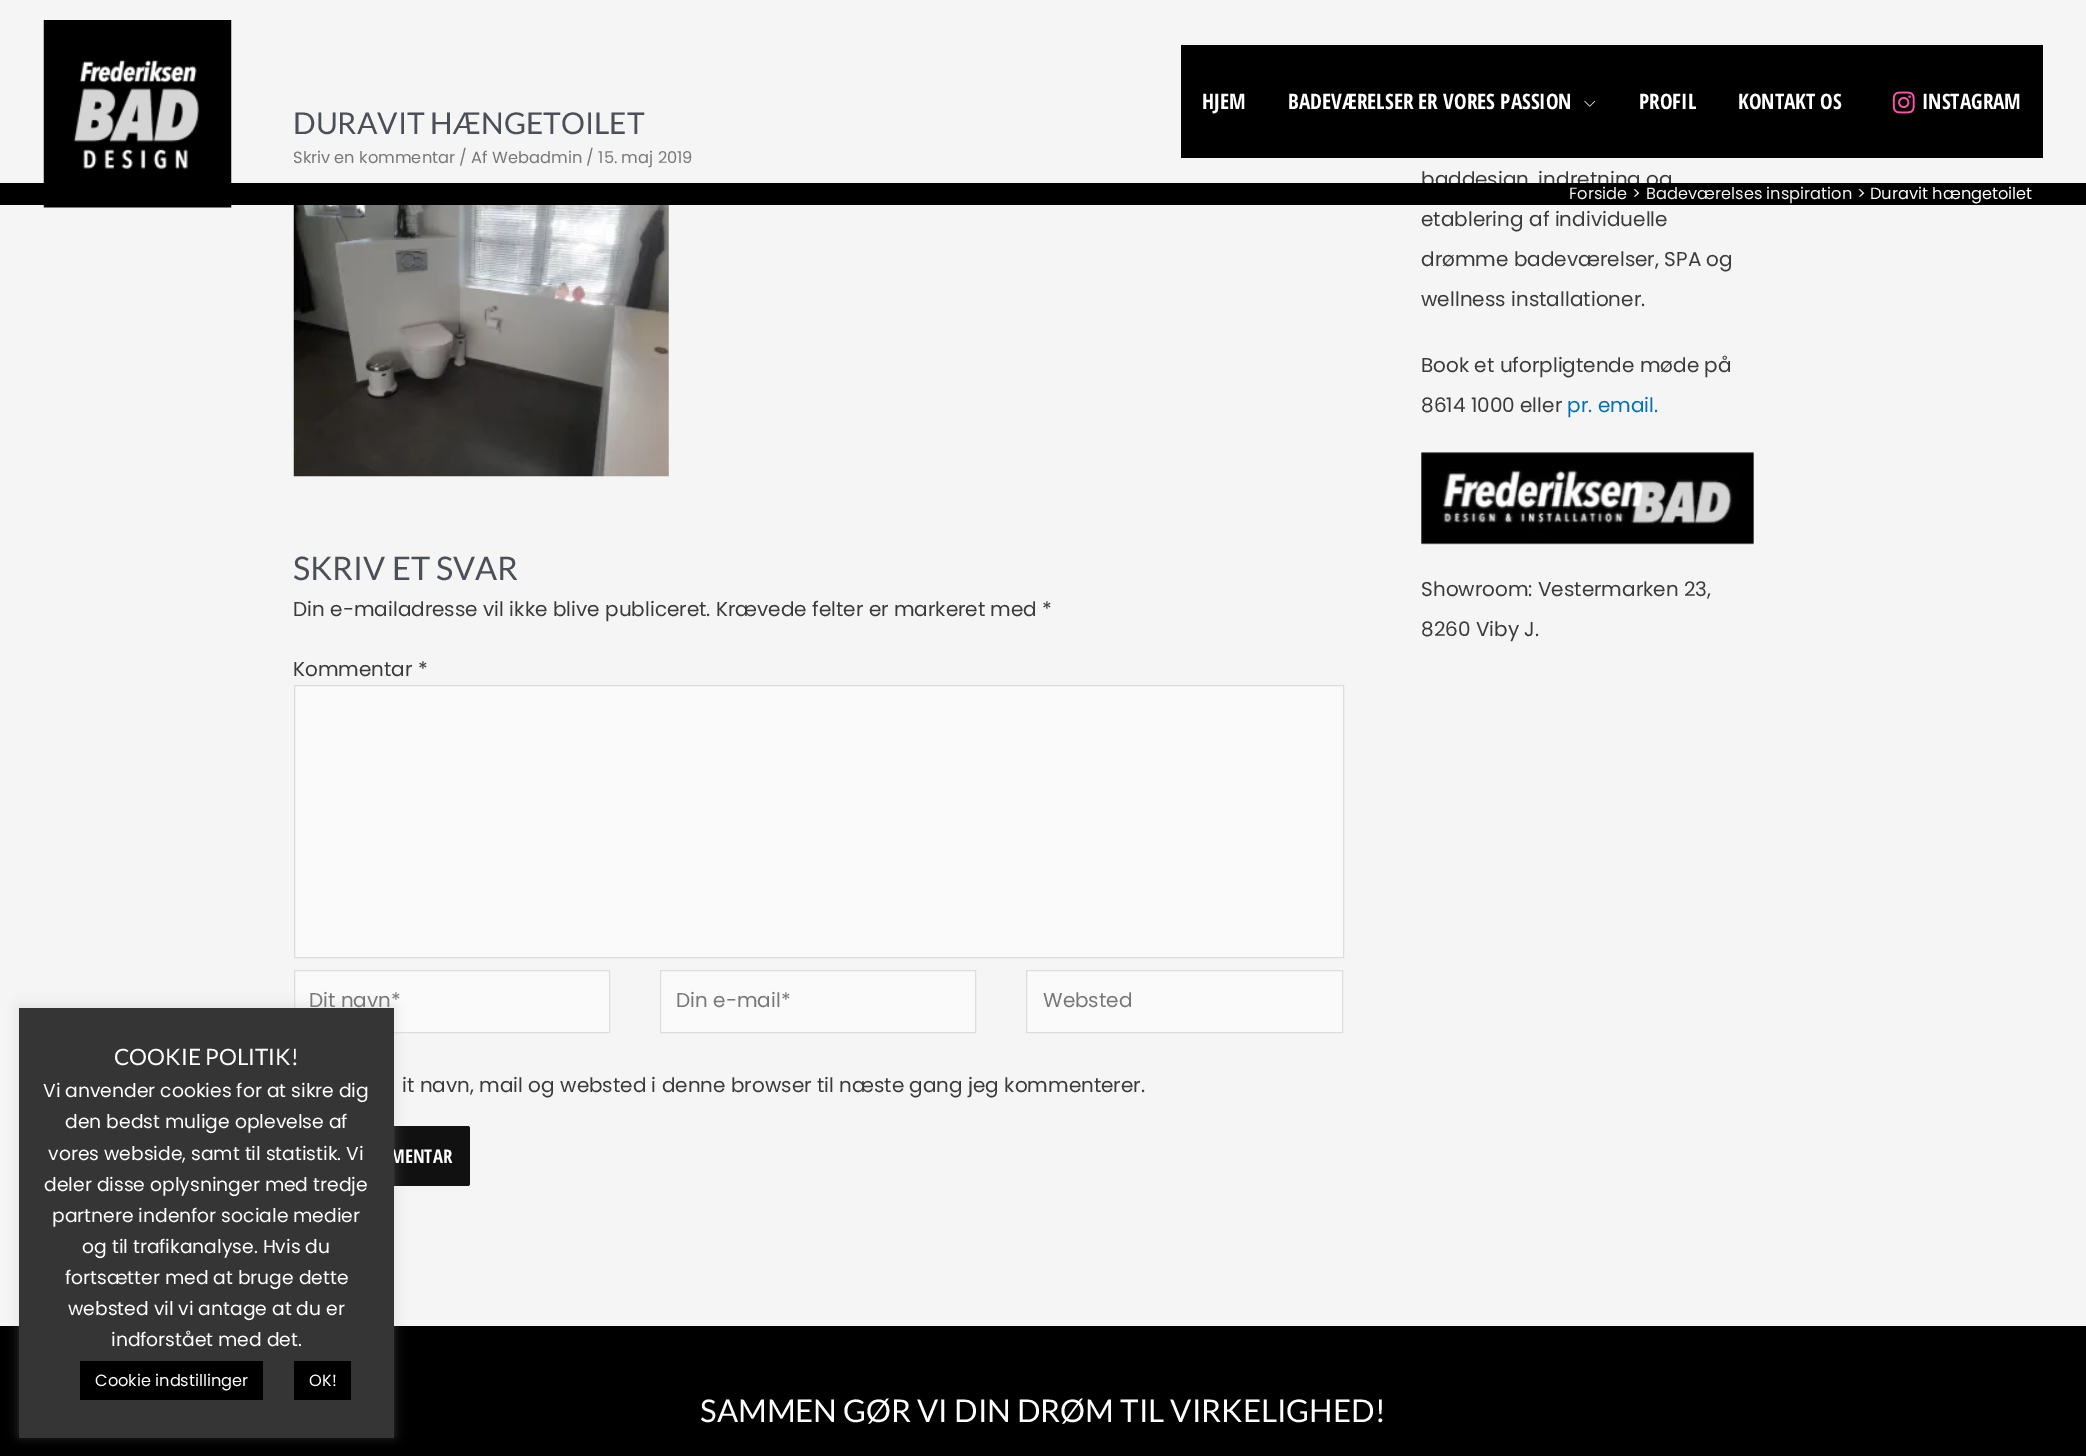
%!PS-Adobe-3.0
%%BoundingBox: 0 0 2086 1456
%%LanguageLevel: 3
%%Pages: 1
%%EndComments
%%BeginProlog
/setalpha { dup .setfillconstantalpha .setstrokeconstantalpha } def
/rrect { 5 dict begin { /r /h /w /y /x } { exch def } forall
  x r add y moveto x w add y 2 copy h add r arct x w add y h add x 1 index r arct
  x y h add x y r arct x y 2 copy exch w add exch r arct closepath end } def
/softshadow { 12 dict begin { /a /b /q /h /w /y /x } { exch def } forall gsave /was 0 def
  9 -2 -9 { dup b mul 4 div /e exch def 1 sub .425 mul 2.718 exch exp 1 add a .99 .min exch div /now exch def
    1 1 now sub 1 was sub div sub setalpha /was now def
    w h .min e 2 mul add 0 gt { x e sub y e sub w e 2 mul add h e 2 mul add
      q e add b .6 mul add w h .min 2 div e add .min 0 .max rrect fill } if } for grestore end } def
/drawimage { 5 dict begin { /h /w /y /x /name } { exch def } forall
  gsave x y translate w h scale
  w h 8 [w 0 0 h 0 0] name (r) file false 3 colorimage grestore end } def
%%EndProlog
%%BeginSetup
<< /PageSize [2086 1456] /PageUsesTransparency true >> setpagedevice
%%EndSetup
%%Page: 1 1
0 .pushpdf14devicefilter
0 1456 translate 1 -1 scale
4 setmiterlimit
0.961 setgray
0 0 2086 1456 rectfill
0.98 setgray
newpath 294.5 970.5 moveto 609.5 970.5 lineto 609.5 1032.5 lineto 294.5 1032.5 lineto closepath gsave fill grestore
0.867 setgray
stroke
0.067 setgray
294 1126 176 60 2.5 rrect fill
0 setgray
0 1326 2086 130 rectfill
0.675 0.671 0.671 setrgbcolor
19 1006 375 430 0 6 0.3 softshadow
0 setgray
1181 45 862 113 rectfill
(images/2.raw) 1584 100 12 7 drawimage
(images/3.raw) 1892 91 23 23 drawimage
(images/4.raw) 293 205 376 272 drawimage
0.98 setgray
newpath 294.5 685.5 moveto 1343.5 685.5 lineto 1343.5 957.5 lineto 294.5 957.5 lineto closepath gsave fill grestore
0.867 setgray
stroke
0.98 setgray
newpath 660.5 970.5 moveto 975.5 970.5 lineto 975.5 1032.5 lineto 660.5 1032.5 lineto closepath gsave fill grestore
0.867 setgray
stroke
0.98 setgray
newpath 1026.5 970.5 moveto 1342.5 970.5 lineto 1342.5 1032.5 lineto 1026.5 1032.5 lineto closepath gsave fill grestore
0.867 setgray
stroke
(images/5.raw) 1421 452 333 93 drawimage
/OpenSansCondensed-Bold [21.25 0 0 -21.25 0 0] selectfont
1 setgray
1202 109 moveto (HJEM) show
1288 109 moveto (BADEVÆRELSER ER VORES PASSION) show
1639 109 moveto (PROFIL) show
1738 109 moveto (KONTAKT OS) show
1922 109 moveto (INSTAGRAM) show
/Lato-Regular [30 0 0 -30 0 0] selectfont
0.294 0.31 0.345 setrgbcolor
293 134 moveto (DURAVIT HÆNGETOILET) show
/Poppins-Regular [16.25 0 0 -16.25 0 0] selectfont
0.467 setgray
293 163 moveto (Skriv en kommentar / Af Webadmin / 15. maj 2019) show
/Lato-Regular [32.5 0 0 -32.5 0 0] selectfont
0.294 0.31 0.345 setrgbcolor
293 580 moveto (SKRIV ET SVAR) show
/Poppins-Regular [20 0 0 -20 0 0] selectfont
0.227 setgray
293 616 moveto (Din e-mailadresse vil ikke blive publiceret. Krævede felter er markeret med *) show
293 676 moveto (Kommentar *) show
0.467 setgray
309 1007 moveto (Dit navn*) show
676 1007 moveto (Din e-mail*) show
1043 1007 moveto (Websted) show
0.227 setgray
402 1092 moveto (it navn, mail og websted i denne browser til næste gang jeg kommenterer.) show
/OpenSansCondensed-Bold [18.75 0 0 -18.75 0 0] selectfont
1 setgray
390 1163 moveto (MENTAR) show
0.208 setgray
19 1008 375 430 rectfill
0 setgray
294 1361 57 39 rectfill
/Poppins-Regular [16.25 0 0 -16.25 0 0] selectfont
1 setgray
309 1386 moveto (OK!) show
0 setgray
80 1361 183 39 rectfill
1 setgray
95 1386 moveto (Cookie indstillinger) show
/Poppins-Regular [18.75 0 0 -18.75 0 0] selectfont
111 1346 moveto (indforstået med det.) show
68 1315 moveto (websted vil vi antage at du er) show
65 1284 moveto (fortsætter med at bruge dette) show
82 1253 moveto (og til trafikanalyse. Hvis du) show
52 1222 moveto (partnere indenfor sociale medier) show
44 1191 moveto (deler disse oplysninger med tredje) show
48 1160 moveto (vores webside, samt til statistik. Vi) show
65 1128 moveto (den bedst mulige oplevelse af) show
43 1097 moveto (Vi anvender cookies for at sikre dig) show
/Lato-Regular [22.5 0 0 -22.5 0 0] selectfont
114 1065 moveto (COOKIE POLITIK!) show
/Poppins-Regular [20 0 0 -20 0 0] selectfont
0.227 setgray
1421 186 moveto (baddesign, indretning og) show
0 setgray
0 183 2086 22 rectfill
/Poppins-Regular [16.25 0 0 -16.25 0 0] selectfont
1 setgray
1870 199 moveto (Duravit hængetoilet) show
0.961 setgray
1857 199 moveto (>) show
1646 199 moveto (Badeværelses inspiration) show
1632 199 moveto (>) show
1569 199 moveto (Forside) show
(images/1.raw) 43 20 189 188 drawimage
/Poppins-Regular [20 0 0 -20 0 0] selectfont
0.227 setgray
1421 226 moveto (etablering af individuelle) show
1421 266 moveto (drømme badeværelser, SPA og) show
1421 306 moveto (wellness installationer.) show
1421 372 moveto (Book et uforpligtende møde på) show
1421 412 moveto (8614 1000 eller) show
0.004 0.439 0.725 setrgbcolor
1567 412 moveto (pr. email.) show
0.227 setgray
1421 596 moveto (Showroom: Vestermarken 23,) show
1421 636 moveto (8260 Viby J.) show
/Lato-Regular [31.25 0 0 -31.25 0 0] selectfont
1 setgray
700 1422 moveto (SAMMEN GØR VI DIN DRØM TIL VIRKELIGHED!) show
.poppdf14devicefilter showpage
%%EOF
